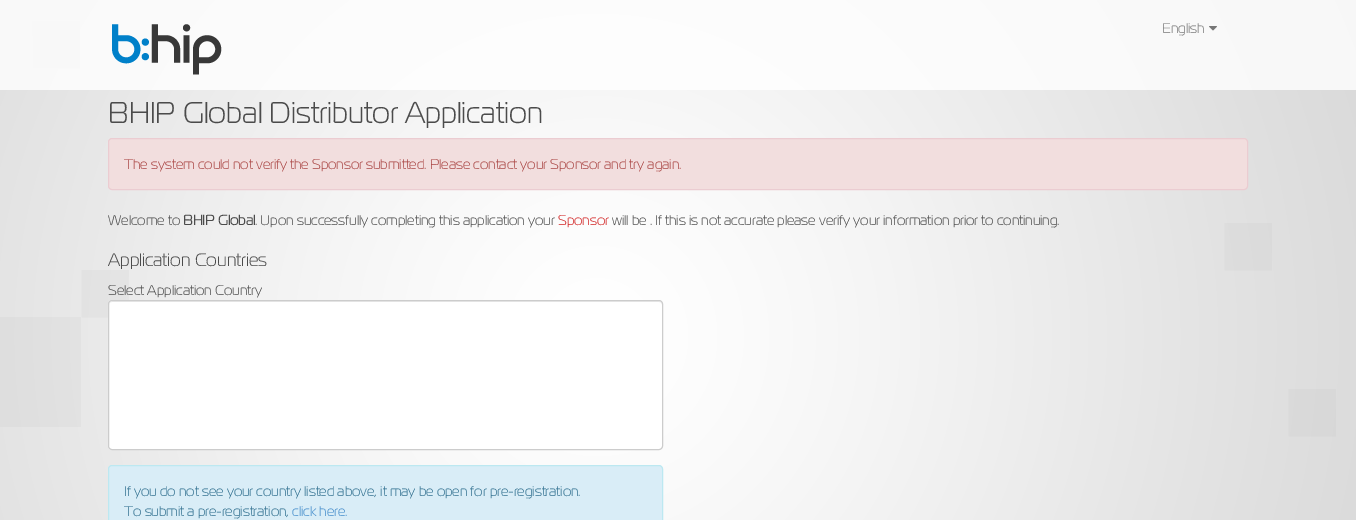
%!PS-Adobe-3.0
%%BoundingBox: 0 0 1356 520
%%LanguageLevel: 3
%%Pages: 1
%%EndComments
%%BeginProlog
/setalpha { dup .setfillconstantalpha .setstrokeconstantalpha } def
/rrect { 5 dict begin { /r /h /w /y /x } { exch def } forall
  x r add y moveto x w add y 2 copy h add r arct x w add y h add x 1 index r arct
  x y h add x y r arct x y 2 copy exch w add exch r arct closepath end } def
/drawimage { 5 dict begin { /h /w /y /x /name } { exch def } forall
  gsave x y translate w h scale
  w h 8 [w 0 0 h 0 0] name (r) file false 3 colorimage grestore end } def
%%EndProlog
%%BeginSetup
<< /PageSize [1356 520] /PageUsesTransparency true >> setpagedevice
%%EndSetup
%%Page: 1 1
0 .pushpdf14devicefilter
0 520 translate 1 -1 scale
4 setmiterlimit
1 setgray
0 0 1356 520 rectfill
(images/1.raw) 0 0 1356 520 drawimage
0.8 setalpha
0 0 1356 90 rectfill
1 setalpha
(images/2.raw) 112 24 110 51 drawimage
(images/3.raw) 1209 26 8 5 drawimage
0.949 0.871 0.871 setrgbcolor
108.5 138.5 1139 51 3.5 rrect gsave fill grestore
0.922 0.8 0.82 setrgbcolor
stroke
1 setgray
108 300 555 150 4 rrect fill
0.925 setgray
newpath 112 302 moveto 659 302 lineto 661 302 662 303 662 305 curveto 662 303 661 301 659 301 curveto 112 301 lineto 110 302 lineto 109 303 lineto 109 305 lineto 109 303 110 302 112 302 curveto closepath fill
0.8 setgray
108.5 300.5 554 149 3.5 rrect stroke
0.851 0.929 0.969 setrgbcolor
108.5 465.5 554 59 3.5 rrect gsave fill grestore
0.737 0.91 0.945 setrgbcolor
stroke
/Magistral-Light [14 0 0 -14 0 0] selectfont
0.467 setgray
1162 33 moveto (English) show
/Magistral-Light [30 0 0 -30 0 0] selectfont
0.294 setgray
108 123 moveto (BHIP Global Distributor Application) show
/Magistral-Light [14 0 0 -14 0 0] selectfont
0.663 0.267 0.259 setrgbcolor
124 169 moveto (The system could not verify the Sponsor submitted. Please contact your Sponsor and try again.) show
0.294 setgray
108 225 moveto (Welcome to) show
/Magistral-Bold [14 0 0 -14 0 0] selectfont
183 225 moveto (BHIP Global) show
/Magistral-Light [14 0 0 -14 0 0] selectfont
255 225 moveto (. Upon successfully completing this application your) show
0.816 0.122 0.122 setrgbcolor
558 225 moveto (Sponsor) show
0.294 setgray
612 225 moveto (will be . If this is not accurate please verify your information prior to continuing.) show
/Magistral-Light [18 0 0 -18 0 0] selectfont
108 266 moveto (Application Countries) show
/Magistral-Light [14 0 0 -14 0 0] selectfont
108 295 moveto (Select Application Country) show
0.192 0.439 0.561 setrgbcolor
124 496 moveto (If you do not see your country listed above, it may be open for pre-registration.) show
124 516 moveto (To submit a pre-registration,) show
0.259 0.545 0.792 setrgbcolor
292 516 moveto (click here.) show
.poppdf14devicefilter showpage
%%EOF
